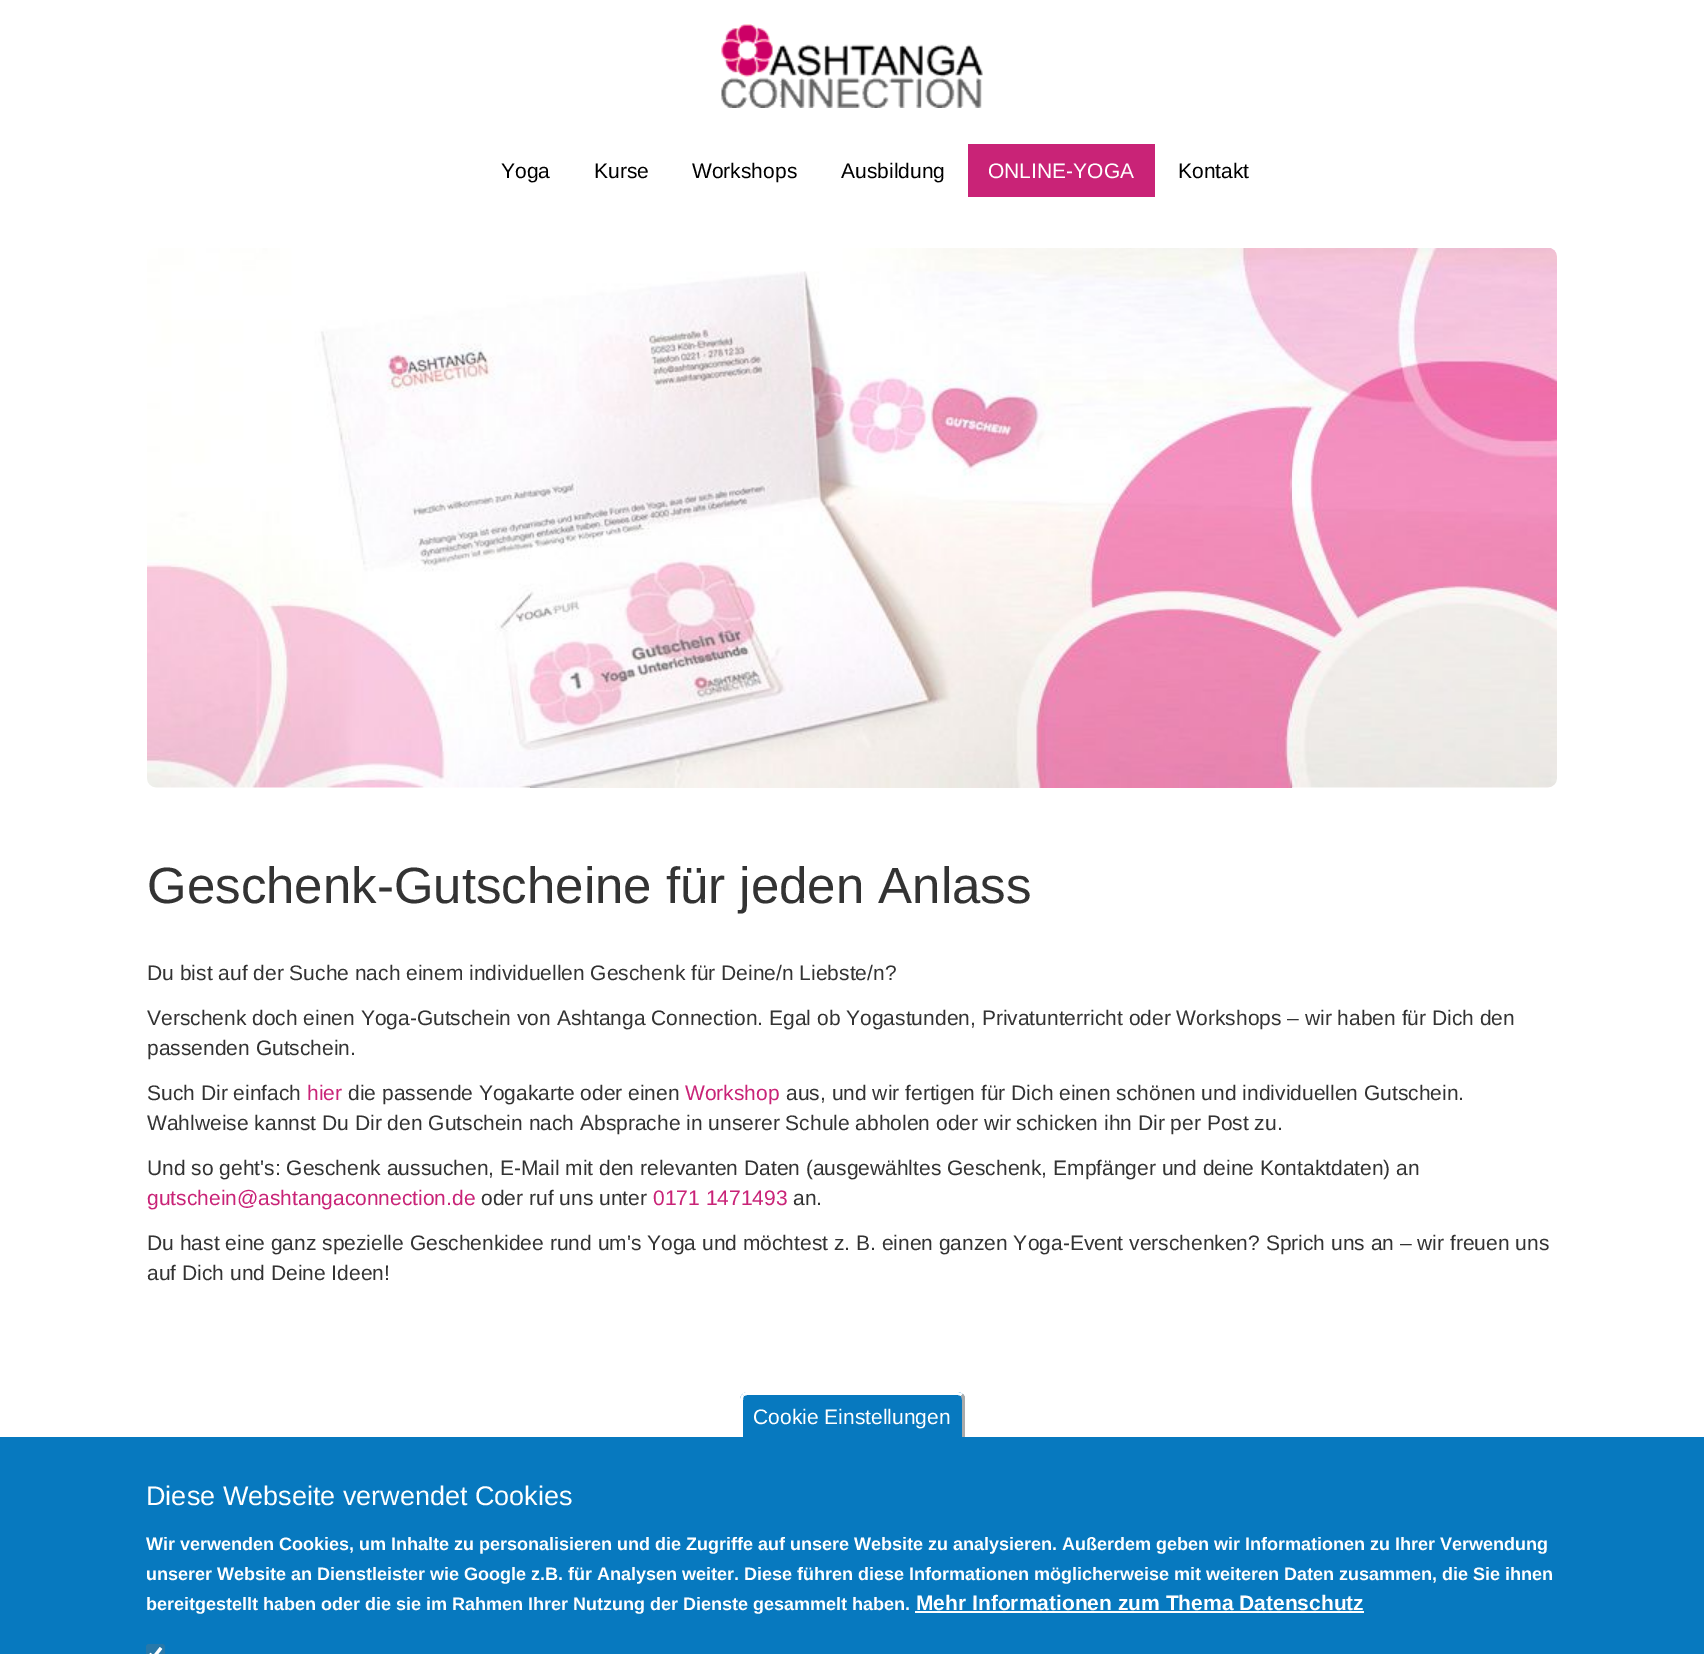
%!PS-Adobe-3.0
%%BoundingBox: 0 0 1704 1654
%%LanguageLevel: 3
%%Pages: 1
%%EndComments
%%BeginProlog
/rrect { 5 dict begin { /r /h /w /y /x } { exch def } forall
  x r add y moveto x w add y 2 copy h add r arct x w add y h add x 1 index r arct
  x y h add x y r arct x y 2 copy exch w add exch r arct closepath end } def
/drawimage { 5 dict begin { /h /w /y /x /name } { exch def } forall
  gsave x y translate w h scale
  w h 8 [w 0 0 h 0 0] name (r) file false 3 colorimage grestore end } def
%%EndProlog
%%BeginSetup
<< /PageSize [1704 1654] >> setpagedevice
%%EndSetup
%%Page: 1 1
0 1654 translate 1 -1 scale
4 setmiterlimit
1 setgray
0 0 1704 1654 rectfill
(images/1.raw) 721 24 262 84 drawimage
0.788 0.137 0.467 setrgbcolor
968 144 187 53 rectfill
(images/2.raw) 147 248 1410 540 drawimage
0.027 0.475 0.749 setrgbcolor
0 1437 1704 217 rectfill
newpath 748 1392 moveto 957 1392 lineto 961.5 1392 965 1395.5 965 1400 curveto 965 1437 lineto 740 1437 lineto 740 1400 lineto 740 1395.5 743.5 1392 748 1392 curveto closepath fill
1 setgray
newpath 747 1392 moveto 957 1392 lineto 959 1392 961 1393 963 1394 curveto 961 1396 lineto 958 1395 lineto 747 1395 lineto 744 1396 lineto 742 1394 lineto 743 1393 745 1392 747 1392 curveto closepath fill
0.667 setgray
newpath 961 1396 moveto 963 1394 lineto 964 1395 965 1397 965 1398 curveto 965 1437 lineto 962 1437 lineto 962 1400 lineto 962 1398 961 1397 961 1396 curveto closepath fill
1 setgray
newpath 740 1437 moveto 743 1437 lineto 743 1400 lineto 743 1399 743 1397 744 1396 curveto 742 1394 lineto 741 1396 740 1398 740 1400 curveto closepath fill
915 1611 449 2 rectfill
0.157 0.471 0.663 setrgbcolor
146 1644 19 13 3 rrect fill
1 setgray
3.1 setlinewidth
newpath 149.5 1654 moveto 153.5 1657.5 lineto 161 1648 lineto stroke
/LiberationSans-Regular [21 0 0 -21 0 0] selectfont
0 setgray
501 178 moveto (Yoga) show
594 178 moveto (Kurse) show
692 178 moveto (Workshops) show
841 178 moveto (Ausbildung) show
1 setgray
988 178 moveto (ONLINE-YOGA) show
0 setgray
1178 178 moveto (Kontakt) show
/LiberationSans-Regular [51 0 0 -51 0 0] selectfont
0.2 setgray
147 903 moveto (Geschenk-Gutscheine für jeden Anlass) show
/LiberationSans-Regular [21 0 0 -21 0 0] selectfont
147 980 moveto (Du bist auf der Suche nach einem individuellen Geschenk für Deine/n Liebste/n?) show
147 1025 moveto (Verschenk doch einen Yoga-Gutschein von Ashtanga Connection. Egal ob Yogastunden, Privatunterricht oder Workshops – wir haben für Dich den) show
147 1055 moveto (passenden Gutschein.) show
147 1100 moveto (Such Dir einfach) show
0.788 0.137 0.467 setrgbcolor
307 1100 moveto (hier) show
0.2 setgray
348 1100 moveto (die passende Yogakarte oder einen) show
0.788 0.137 0.467 setrgbcolor
685 1100 moveto (Workshop) show
0.2 setgray
786 1100 moveto (aus, und wir fertigen für Dich einen schönen und individuellen Gutschein.) show
147 1130 moveto (Wahlweise kannst Du Dir den Gutschein nach Absprache in unserer Schule abholen oder wir schicken ihn Dir per Post zu.) show
147 1175 moveto (Und so geht's: Geschenk aussuchen, E-Mail mit den relevanten Daten \(ausgewähltes Geschenk, Empfänger und deine Kontaktdaten\) an) show
0.788 0.137 0.467 setrgbcolor
147 1205 moveto (gutschein@ashtangaconnection.de) show
0.2 setgray
481 1205 moveto (oder ruf uns unter) show
0.788 0.137 0.467 setrgbcolor
653 1205 moveto (0171 1471493) show
0.2 setgray
793 1205 moveto (an.) show
147 1250 moveto (Du hast eine ganz spezielle Geschenkidee rund um's Yoga und möchtest z. B. einen ganzen Yoga-Event verschenken? Sprich uns an – wir freuen uns) show
147 1280 moveto (auf Dich und Deine Ideen!) show
1 setgray
753 1424 moveto (Cookie Einstellungen) show
/LiberationSans-Regular [27 0 0 -27 0 0] selectfont
146 1505 moveto (Diese Webseite verwendet Cookies) show
/LiberationSans-Bold [18 0 0 -18 0 0] selectfont
146 1550 moveto (Wir verwenden Cookies, um Inhalte zu personalisieren und die Zugriffe auf unsere Website zu analysieren. Außerdem geben wir Informationen zu Ihrer Verwendung) show
146 1580 moveto (unserer Website an Dienstleister wie Google z.B. für Analysen weiter. Diese führen diese Informationen möglicherweise mit weiteren Daten zusammen, die Sie ihnen) show
146 1610 moveto (bereitgestellt haben oder die sie im Rahmen Ihrer Nutzung der Dienste gesammelt haben.) show
/LiberationSans-Bold [21 0 0 -21 0 0] selectfont
916 1610 moveto (Mehr Informationen zum Thema Datenschutz) show
showpage
%%EOF
